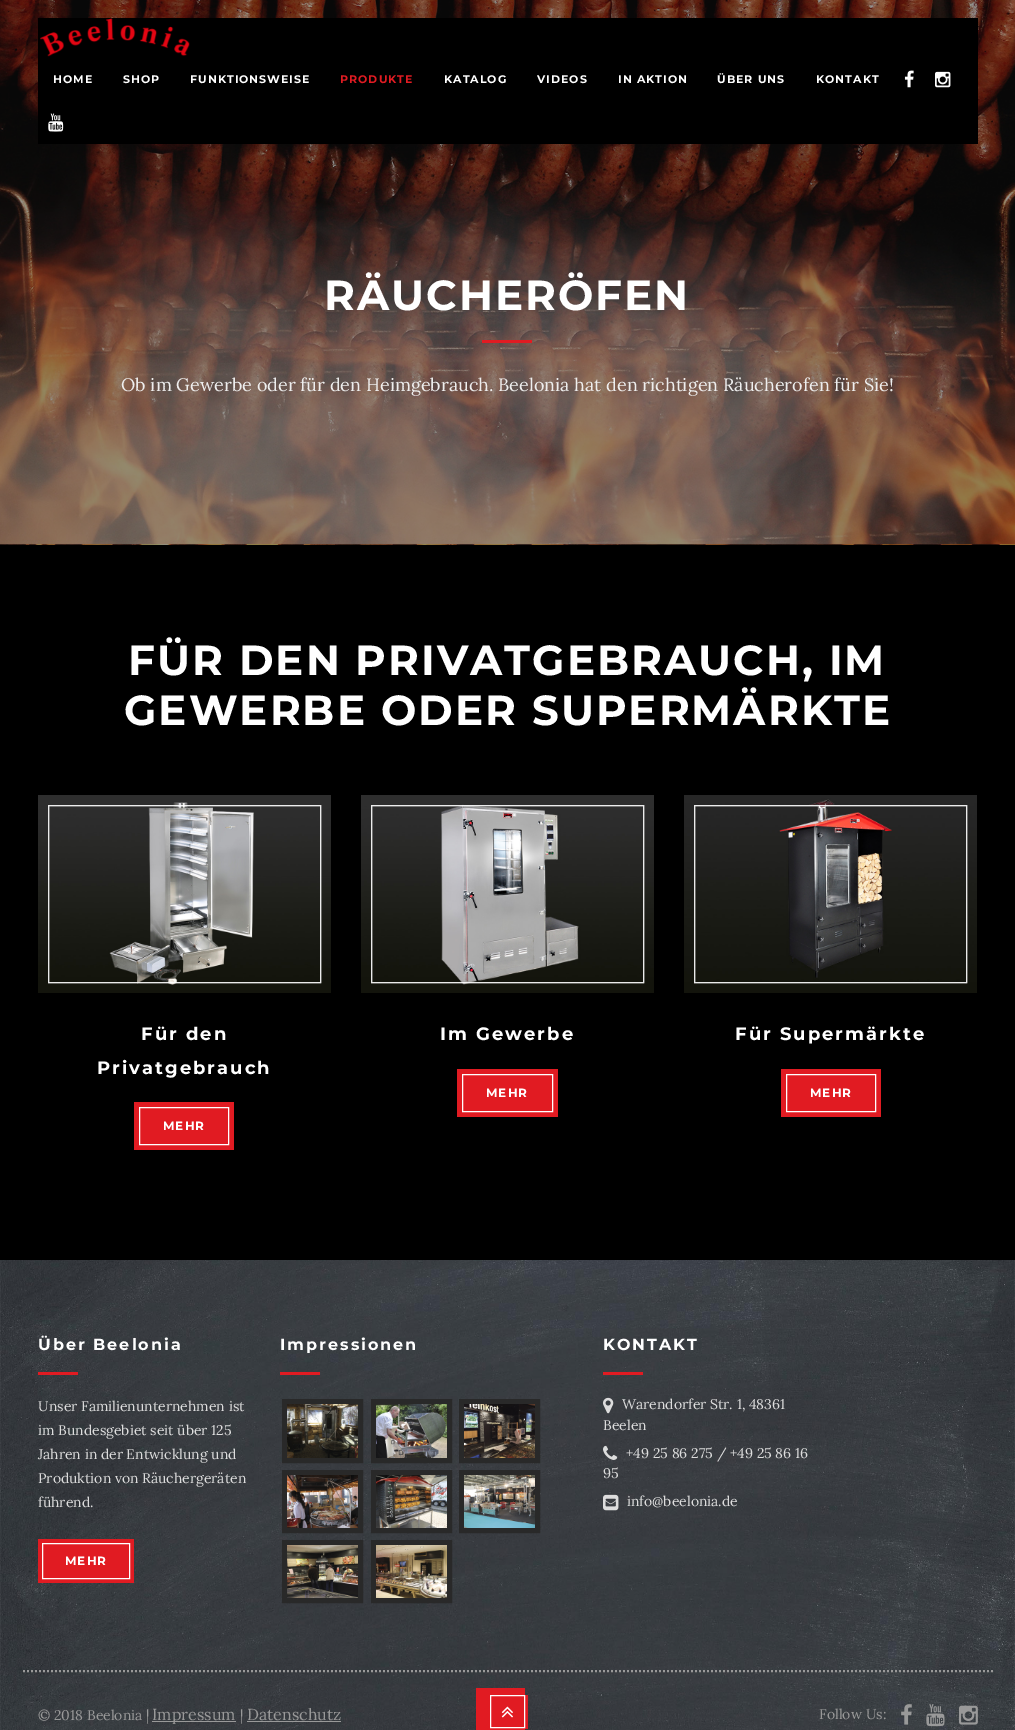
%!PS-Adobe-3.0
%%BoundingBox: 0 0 1015 1730
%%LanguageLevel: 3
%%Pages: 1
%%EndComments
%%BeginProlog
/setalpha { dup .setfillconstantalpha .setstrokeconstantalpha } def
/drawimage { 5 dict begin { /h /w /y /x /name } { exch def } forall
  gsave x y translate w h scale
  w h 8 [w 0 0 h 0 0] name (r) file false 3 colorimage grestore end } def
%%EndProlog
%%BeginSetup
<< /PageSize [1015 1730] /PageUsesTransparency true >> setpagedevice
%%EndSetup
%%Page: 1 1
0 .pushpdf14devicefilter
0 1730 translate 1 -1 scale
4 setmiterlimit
0 setgray
0 0 1015 1730 rectfill
(images/5.raw) 0 0 1015 545 drawimage
38 18 940 126 rectfill
(images/1.raw) 40 18 150 39 drawimage
(images/2.raw) 904 70 10 18 drawimage
(images/3.raw) 935 71 16 17 drawimage
(images/4.raw) 48 113 16 19 drawimage
0.882 0.106 0.133 setrgbcolor
482 340 50 3 rectfill
(images/6.raw) 38 795 293 198 drawimage
0.7 setalpha
1 setgray
48.5 805.5 272 177 rectstroke
48.5 805.5 272 177 rectstroke
1 setalpha
0.882 0.106 0.133 setrgbcolor
134 1102 100 48 rectfill
1 setgray
139.5 1107.5 89 37 rectstroke
(images/7.raw) 361 795 293 198 drawimage
0.7 setalpha
371.5 805.5 272 177 rectstroke
371.5 805.5 272 177 rectstroke
1 setalpha
0.882 0.106 0.133 setrgbcolor
457 1069 101 48 rectfill
1 setgray
462.5 1074.5 90 37 rectstroke
(images/8.raw) 684 795 293 198 drawimage
0.7 setalpha
694.5 805.5 272 177 rectstroke
694.5 805.5 272 177 rectstroke
1 setalpha
0.882 0.106 0.133 setrgbcolor
781 1069 100 48 rectfill
1 setgray
786.5 1074.5 89 37 rectstroke
(images/9.raw) 0 1260 1015 470 drawimage
0.6 setgray
2 setlinewidth
[2 2] 0 setdash
newpath 23 1671 moveto 993 1671 lineto stroke
0.882 0.106 0.133 setrgbcolor
38 1372 40 3 rectfill
38 1539 96 44 rectfill
1 setgray
1 setlinewidth
[] 0 setdash
42.5 1543.5 87 35 rectstroke
0.882 0.106 0.133 setrgbcolor
280 1372 40 3 rectfill
0.161 setgray
5 setlinewidth
284.5 1401.5 76 59 rectstroke
(images/10.raw) 287 1404 71 54 drawimage
373.5 1401.5 76 59 rectstroke
(images/11.raw) 376 1404 71 54 drawimage
461.5 1401.5 76 59 rectstroke
(images/12.raw) 464 1404 71 54 drawimage
284.5 1472.5 76 58 rectstroke
(images/13.raw) 287 1475 71 53 drawimage
373.5 1472.5 76 58 rectstroke
(images/14.raw) 376 1475 71 53 drawimage
461.5 1472.5 76 58 rectstroke
(images/15.raw) 464 1475 71 53 drawimage
284.5 1542.5 76 58 rectstroke
(images/16.raw) 287 1545 71 53 drawimage
373.5 1542.5 76 58 rectstroke
(images/17.raw) 376 1545 71 53 drawimage
0.882 0.106 0.133 setrgbcolor
603 1372 40 3 rectfill
(images/18.raw) 603 1397 11 17 drawimage
(images/19.raw) 603 1445 15 15 drawimage
(images/20.raw) 603 1494 16 17 drawimage
0.6 setgray
152 1721 84 1 rectfill
247 1721 94 1 rectfill
0.882 0.106 0.133 setrgbcolor
476 1688 49 42 rectfill
525 1695 3 34 rectfill
(images/21.raw) 501 1706 12 12 drawimage
1 setgray
1 setlinewidth
490.5 1695.5 34 32 rectstroke
(images/22.raw) 901 1704 11 21 drawimage
(images/23.raw) 926 1704 19 23 drawimage
(images/24.raw) 959 1705 19 20 drawimage
/Montserrat-Thin [11 0 0 -11 0 0] selectfont
53 83 moveto 1 0 (HOME) ashow
123 83 moveto 1 0 (SHOP) ashow
190 83 moveto 1 0 (FUNKTIONSWEISE) ashow
0.882 0.106 0.133 setrgbcolor
340 83 moveto 1 0 (PRODUKTE) ashow
1 setgray
444 83 moveto 1 0 (KATALOG) ashow
537 83 moveto 1 0 (VIDEOS) ashow
618 83 moveto 1 0 (IN AKTION) ashow
717 83 moveto 1 0 (ÜBER UNS) ashow
816 83 moveto 1 0 (KONTAKT) ashow
/Montserrat-Thin [42 0 0 -42 0 0] selectfont
324 310 moveto 2 0 (RÄUCHERÖFEN) ashow
/Lora-Regular [18 0 0 -18 0 0] selectfont
0.933 setgray
121 391 moveto (Ob im Gewerbe oder für den Heimgebrauch. Beelonia hat den richtigen Räucherofen für Sie!) show
/Montserrat-Thin [42 0 0 -42 0 0] selectfont
1 setgray
128 675 moveto 2 0 (FÜR DEN PRIVATGEBRAUCH, IM) ashow
124 725 moveto 2 0 (GEWERBE ODER SUPERMÄRKTE) ashow
/Montserrat-Thin [18 0 0 -18 0 0] selectfont
141 1040 moveto 2 0 (Für den) ashow
97 1074 moveto 2 0 (Privatgebrauch) ashow
/Montserrat-Thin [12 0 0 -12 0 0] selectfont
163 1130 moveto 1 0 (MEHR) ashow
/Montserrat-Thin [18 0 0 -18 0 0] selectfont
440 1040 moveto 2 0 (Im Gewerbe) ashow
/Montserrat-Thin [12 0 0 -12 0 0] selectfont
486 1097 moveto 1 0 (MEHR) ashow
/Montserrat-Thin [18 0 0 -18 0 0] selectfont
735 1040 moveto 2 0 (Für Supermärkte) ashow
/Montserrat-Thin [12 0 0 -12 0 0] selectfont
810 1097 moveto 1 0 (MEHR) ashow
/Montserrat-Thin [16 0 0 -16 0 0] selectfont
38 1350 moveto 2 0 (Über Beelonia) ashow
/Lora-Regular [14 0 0 -14 0 0] selectfont
0.867 setgray
38 1411 moveto (Unser Familienunternehmen ist) show
38 1435 moveto (im Bundesgebiet seit über 125) show
38 1459 moveto (Jahren in der Entwicklung und) show
38 1483 moveto (Produktion von Räuchergeräten) show
38 1507 moveto (führend.) show
/Montserrat-Thin [12 0 0 -12 0 0] selectfont
1 setgray
65 1565 moveto 1 0 (MEHR) ashow
/Montserrat-Thin [16 0 0 -16 0 0] selectfont
280 1350 moveto 2 0 (Impressionen) ashow
603 1350 moveto 2 0 (KONTAKT) ashow
/Lora-Regular [14 0 0 -14 0 0] selectfont
0.867 setgray
622 1409 moveto (Warendorfer Str. 1, 48361) show
603 1430 moveto (Beelen) show
626 1458 moveto (+49 25 86 275 / +49 25 86 16) show
603 1478 moveto (95) show
627 1506 moveto (info@beelonia.de) show
0.6 setgray
38 1720 moveto (© 2018 Beelonia |) show
/Lora-Regular [16 0 0 -16 0 0] selectfont
152 1720 moveto (Impressum) show
/Lora-Regular [14 0 0 -14 0 0] selectfont
240 1720 moveto (|) show
/Lora-Regular [16 0 0 -16 0 0] selectfont
247 1720 moveto (Datenschutz) show
/Lora-Regular [14 0 0 -14 0 0] selectfont
819 1719 moveto (Follow Us:) show
.poppdf14devicefilter showpage
%%EOF
